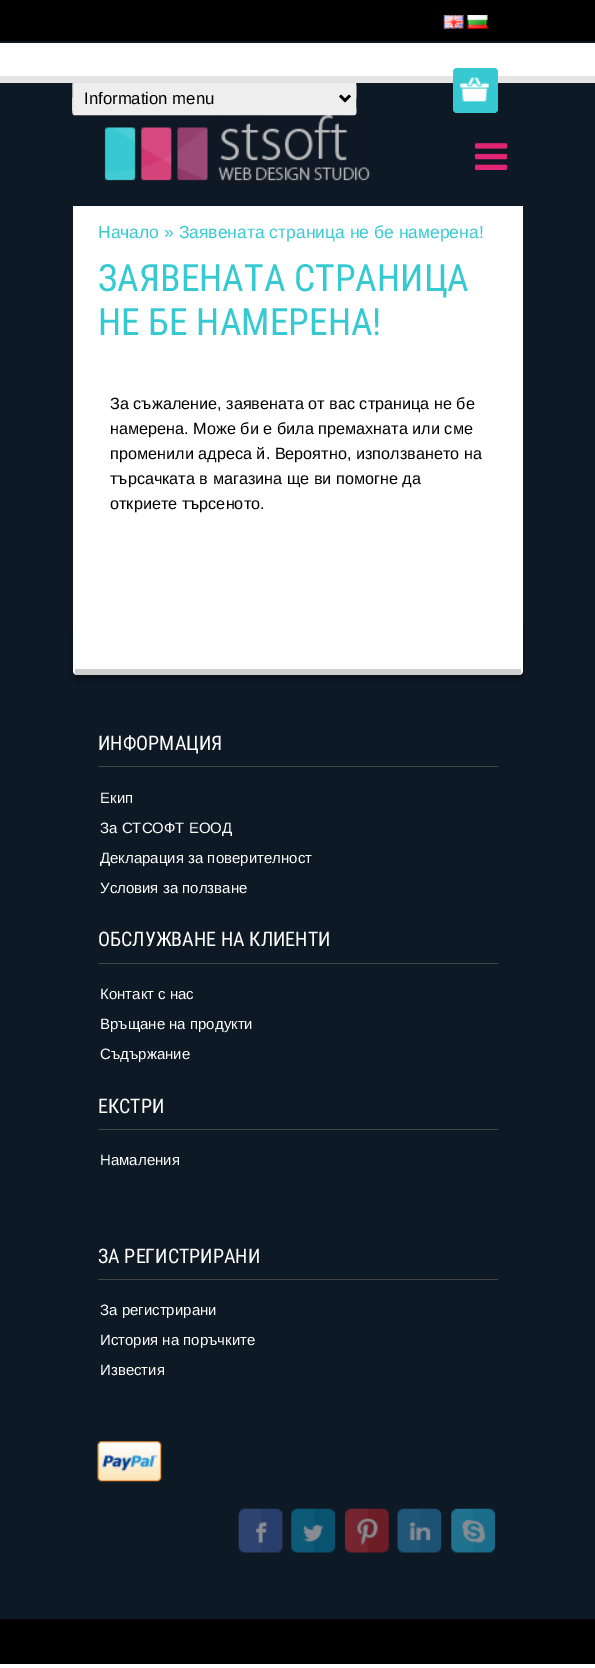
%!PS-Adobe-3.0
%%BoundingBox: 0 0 595 1668
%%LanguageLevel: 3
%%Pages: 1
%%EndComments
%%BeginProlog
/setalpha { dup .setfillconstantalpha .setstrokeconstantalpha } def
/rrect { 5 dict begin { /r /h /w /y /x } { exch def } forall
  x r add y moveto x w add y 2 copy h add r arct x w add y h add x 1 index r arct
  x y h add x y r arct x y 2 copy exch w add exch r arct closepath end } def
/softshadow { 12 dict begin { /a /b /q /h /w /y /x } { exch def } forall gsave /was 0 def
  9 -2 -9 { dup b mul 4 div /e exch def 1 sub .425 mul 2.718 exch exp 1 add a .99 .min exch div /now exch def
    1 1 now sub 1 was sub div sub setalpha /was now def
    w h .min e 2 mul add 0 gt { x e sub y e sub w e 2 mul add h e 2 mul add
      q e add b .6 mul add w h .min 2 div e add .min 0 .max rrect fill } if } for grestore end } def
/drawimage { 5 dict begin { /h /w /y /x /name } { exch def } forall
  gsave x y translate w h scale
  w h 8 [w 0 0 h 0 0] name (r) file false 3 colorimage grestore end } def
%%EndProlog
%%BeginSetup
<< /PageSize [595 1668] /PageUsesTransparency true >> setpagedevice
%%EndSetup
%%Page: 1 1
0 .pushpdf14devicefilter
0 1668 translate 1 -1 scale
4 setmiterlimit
1 setgray
0 0 595 1668 rectfill
0.055 0.098 0.149 setrgbcolor
0 41 595 1578 rectfill
0 setgray
0 0 595 41 rectfill
(images/1.raw) 443 15 21 14 drawimage
(images/2.raw) 467 15 21 14 drawimage
1 setgray
0 43 595 33 rectfill
0.898 setgray
0 76 595 7 rectfill
(images/4.raw) 104 114 267 70 drawimage
0.933 setgray
73 81 283 34 2.5 rrect fill
1.2 setlinewidth
newpath 355 82.5 moveto 356.5 84 355.5 100 355.5 103 curveto 355.5 107.5 lineto 355.5 108.5 357 114.5 354 114.5 curveto 74.5 114.5 lineto 73.5 114 lineto stroke
0.867 setgray
newpath 73.5 114 moveto 72 112 73 96.5 73 93.5 curveto 73 88.5 lineto 73 87.5 72 82 75 82 curveto 354.5 82 lineto 355 82.5 lineto stroke
0 setgray
2.5 setlinewidth
newpath 340 95.5 moveto 345 100.5 lineto 350 95.5 lineto stroke
0.212 0.788 0.82 setrgbcolor
453 68 45 45 4 rrect fill
(images/3.raw) 459 77 30 25 drawimage
(images/5.raw) 475 143 33 27 drawimage
1 setgray
73 206 450 413 rectfill
0 setgray
73 625 450 56 4 3 0.3 softshadow
1 setgray
newpath 73 619 moveto 523 619 lineto 523 671 lineto 523 673 521 675 519 675 curveto 77 675 lineto 75 675 73 673 73 671 curveto closepath fill
0.808 setgray
75 669 446 6 rectfill
0.267 setgray
98 766 400 1 rectfill
98 963 400 1 rectfill
98 1129 400 1 rectfill
98 1279 400 1 rectfill
(images/6.raw) 97 1441 65 41 drawimage
(images/7.raw) 238 1508 45 45 drawimage
(images/8.raw) 291 1508 44 45 drawimage
(images/9.raw) 345 1508 44 45 drawimage
(images/10.raw) 397 1508 45 45 drawimage
(images/11.raw) 451 1508 44 45 drawimage
0 setgray
0 1619 595 45 rectfill
/LiberationSans-Regular [16.75 0 0 -16.75 0 0] selectfont
84 104 moveto (Information menu) show
/LiberationSans-Regular [17.5 0 0 -17.5 0 0] selectfont
0.216 0.788 0.824 setrgbcolor
98 238 moveto (Начало » Заявената страница не бе намерена!) show
/RobotoCondensed-Regular [37.5 0 0 -37.5 0 0] selectfont
98 291 moveto (ЗАЯВЕНАТА СТРАНИЦА) show
98 335 moveto (НЕ БЕ НАМЕРЕНА!) show
/LiberationSans-Regular [16.25 0 0 -16.25 0 0] selectfont
0 setgray
110 409 moveto (За съжаление, заявената от вас страница не бе) show
110 434 moveto (намерена. Може би е била премахната или сме) show
110 459 moveto (променили адреса й. Вероятно, използването на) show
110 484 moveto (търсачката в магазина ще ви помогне да) show
110 509 moveto (откриете търсеното.) show
/RobotoCondensed-Regular [20 0 0 -20 0 0] selectfont
1 setgray
98 750 moveto (ИНФОРМАЦИЯ) show
/LiberationSans-Regular [15 0 0 -15 0 0] selectfont
100 803 moveto (Екип) show
100 833 moveto (За СТСОФТ ЕООД) show
100 863 moveto (Декларация за поверителност) show
100 893 moveto (Условия за ползване) show
/RobotoCondensed-Regular [20 0 0 -20 0 0] selectfont
98 946 moveto (ОБСЛУЖВАНЕ НА КЛИЕНТИ) show
/LiberationSans-Regular [15 0 0 -15 0 0] selectfont
100 999 moveto (Контакт с нас) show
100 1029 moveto (Връщане на продукти) show
100 1059 moveto (Съдържание) show
/RobotoCondensed-Regular [20 0 0 -20 0 0] selectfont
98 1113 moveto (ЕКСТРИ) show
/LiberationSans-Regular [15 0 0 -15 0 0] selectfont
100 1165 moveto (Намаления) show
/RobotoCondensed-Regular [20 0 0 -20 0 0] selectfont
98 1263 moveto (ЗА РЕГИСТРИРАНИ) show
/LiberationSans-Regular [15 0 0 -15 0 0] selectfont
100 1315 moveto (За регистрирани) show
100 1345 moveto (История на поръчките) show
100 1375 moveto (Известия) show
.poppdf14devicefilter showpage
%%EOF
